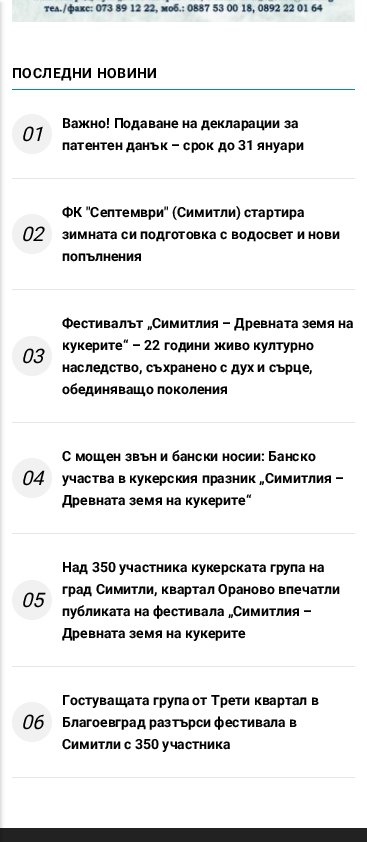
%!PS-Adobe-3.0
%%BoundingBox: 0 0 367 842
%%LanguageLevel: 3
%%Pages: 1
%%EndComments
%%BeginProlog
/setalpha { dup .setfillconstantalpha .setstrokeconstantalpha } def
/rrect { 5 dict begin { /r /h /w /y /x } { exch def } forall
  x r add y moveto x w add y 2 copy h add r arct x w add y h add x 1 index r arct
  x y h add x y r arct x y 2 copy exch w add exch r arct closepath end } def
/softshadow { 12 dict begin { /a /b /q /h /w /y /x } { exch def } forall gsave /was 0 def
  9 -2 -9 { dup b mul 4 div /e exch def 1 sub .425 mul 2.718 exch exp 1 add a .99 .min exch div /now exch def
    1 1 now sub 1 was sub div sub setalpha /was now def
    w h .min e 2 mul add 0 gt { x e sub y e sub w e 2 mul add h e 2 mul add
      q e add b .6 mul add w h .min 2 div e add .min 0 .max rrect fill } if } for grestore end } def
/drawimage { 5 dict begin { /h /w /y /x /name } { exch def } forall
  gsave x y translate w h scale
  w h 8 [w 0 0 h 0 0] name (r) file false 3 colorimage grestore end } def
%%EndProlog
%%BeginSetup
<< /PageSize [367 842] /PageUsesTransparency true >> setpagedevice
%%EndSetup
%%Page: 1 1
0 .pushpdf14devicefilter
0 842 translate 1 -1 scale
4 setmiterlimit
1 setgray
0 0 367 842 rectfill
0.133 setgray
0 828 367 14 rectfill
0 setgray
-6 3 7 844 0 2 0.2 softshadow
(images/1.raw) 12 0 343 22 drawimage
0 0.588 0.451 setrgbcolor
12 89 343 1 rectfill
0.902 setgray
12 178 343 1 rectfill
0.945 setgray
newpath 32 134 20 0 360 arc closepath fill
0.902 setgray
12 289 343 1 rectfill
0.945 setgray
newpath 32 234 20 0 360 arc closepath fill
0.902 setgray
12 422 343 1 rectfill
0.945 setgray
newpath 32 356 20 0 360 arc closepath fill
0.902 setgray
12 533 343 1 rectfill
0.945 setgray
newpath 32 478 20 0 360 arc closepath fill
0.902 setgray
12 666 343 1 rectfill
0.945 setgray
newpath 32 600 20 0 360 arc closepath fill
0.902 setgray
12 777 343 1 rectfill
0.945 setgray
newpath 32 722 20 0 360 arc closepath fill
/Roboto-Bold [14 0 0 -14 0 0] selectfont
0 setgray
12 78 moveto 0.5 0 (ПОСЛЕДНИ НОВИНИ) ashow
/Roboto-Italic [20 0 0 -20 0 0] selectfont
21 141 moveto (01) show
/Roboto-Bold [14 0 0 -14 0 0] selectfont
62 128 moveto (Важно! Подаване на декларации за) show
62 150 moveto (патентен данък – срок до 31 януари) show
/Roboto-Italic [20 0 0 -20 0 0] selectfont
21 241 moveto (02) show
/Roboto-Bold [14 0 0 -14 0 0] selectfont
62 217 moveto (ФК "Септември" \(Симитли\) стартира) show
62 239 moveto (зимната си подготовка с водосвет и нови) show
62 261 moveto (попълнения) show
/Roboto-Italic [20 0 0 -20 0 0] selectfont
21 363 moveto (03) show
/Roboto-Bold [14 0 0 -14 0 0] selectfont
62 328 moveto (Фестивалът „Симитлия – Древната земя на) show
62 350 moveto (кукерите“ – 22 години живо културно) show
62 372 moveto (наследство, съхранено с дух и сърце,) show
62 394 moveto (обединяващо поколения) show
/Roboto-Italic [20 0 0 -20 0 0] selectfont
21 485 moveto (04) show
/Roboto-Bold [14 0 0 -14 0 0] selectfont
62 461 moveto (С мощен звън и бански носии: Банско) show
62 483 moveto (участва в кукерския празник „Симитлия –) show
62 505 moveto (Древната земя на кукерите“) show
/Roboto-Italic [20 0 0 -20 0 0] selectfont
21 607 moveto (05) show
/Roboto-Bold [14 0 0 -14 0 0] selectfont
62 572 moveto (Над 350 участника кукерската група на) show
62 594 moveto (град Симитли, квартал Ораново впечатли) show
62 616 moveto (публиката на фестивала „Симитлия –) show
62 638 moveto (Древната земя на кукерите) show
/Roboto-Italic [20 0 0 -20 0 0] selectfont
21 729 moveto (06) show
/Roboto-Bold [14 0 0 -14 0 0] selectfont
62 705 moveto (Гостуващата група от Трети квартал в) show
62 727 moveto (Благоевград разтърси фестивала в) show
62 749 moveto (Симитли с 350 участника) show
.poppdf14devicefilter showpage
%%EOF
